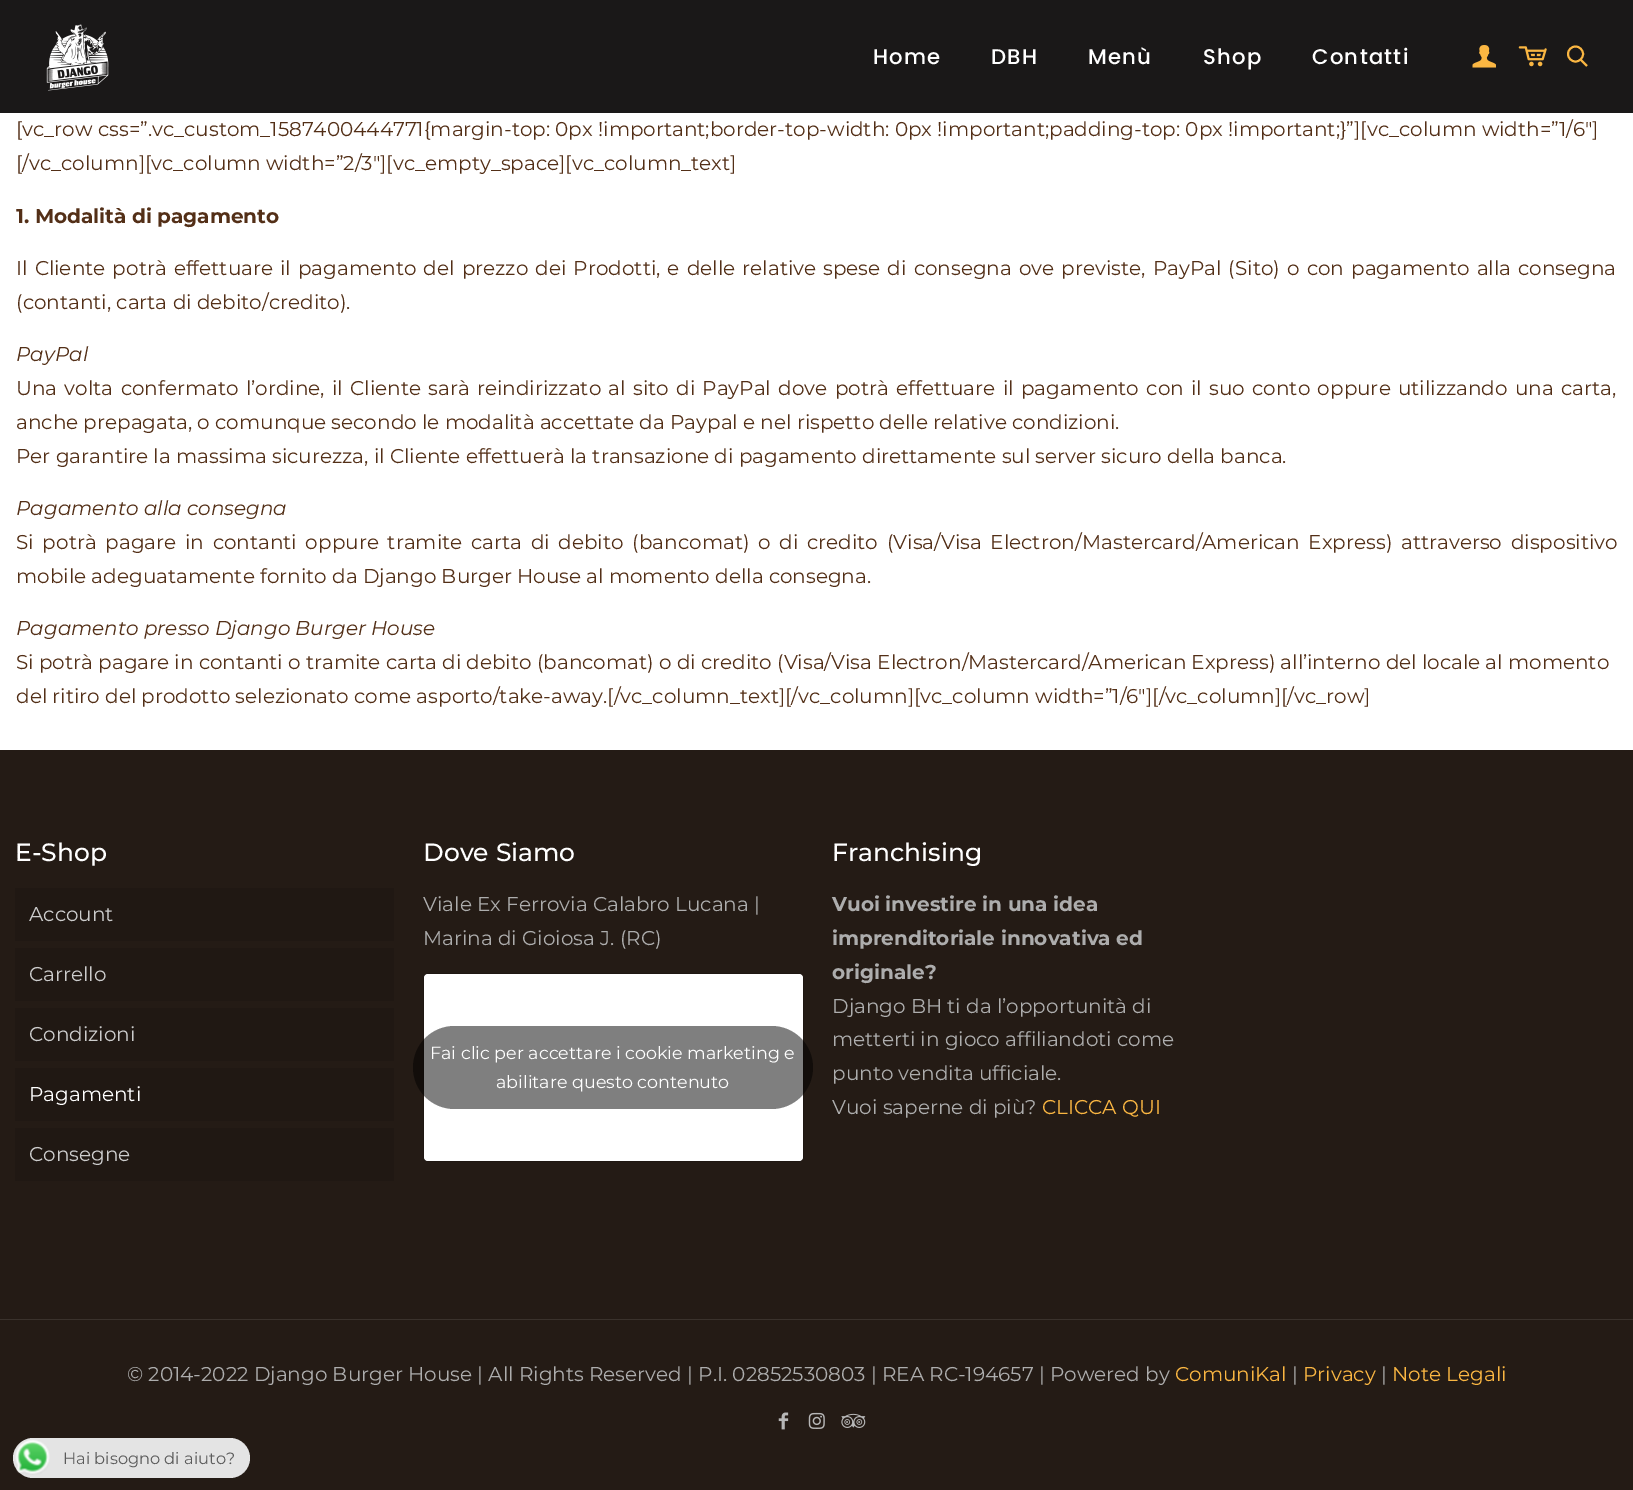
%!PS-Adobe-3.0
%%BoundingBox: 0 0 1633 1490
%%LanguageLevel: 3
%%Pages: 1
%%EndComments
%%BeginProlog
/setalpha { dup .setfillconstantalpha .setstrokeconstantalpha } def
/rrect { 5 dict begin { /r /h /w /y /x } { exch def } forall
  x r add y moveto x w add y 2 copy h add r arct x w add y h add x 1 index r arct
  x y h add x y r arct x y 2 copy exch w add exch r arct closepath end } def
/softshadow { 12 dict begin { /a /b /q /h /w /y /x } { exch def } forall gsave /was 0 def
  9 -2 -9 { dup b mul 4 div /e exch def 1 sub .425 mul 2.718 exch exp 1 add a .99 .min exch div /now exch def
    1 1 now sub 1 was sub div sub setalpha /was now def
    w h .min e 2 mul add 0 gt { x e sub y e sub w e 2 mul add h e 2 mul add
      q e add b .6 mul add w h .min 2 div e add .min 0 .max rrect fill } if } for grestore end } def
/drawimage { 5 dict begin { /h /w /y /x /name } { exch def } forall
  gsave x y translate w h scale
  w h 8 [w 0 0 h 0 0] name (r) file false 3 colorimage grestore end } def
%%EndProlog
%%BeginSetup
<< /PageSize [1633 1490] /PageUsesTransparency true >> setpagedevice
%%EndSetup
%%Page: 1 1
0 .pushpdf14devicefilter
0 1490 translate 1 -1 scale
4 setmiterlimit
1 setgray
0 0 1633 1490 rectfill
0.102 0.094 0.094 setrgbcolor
0 0 1633 113 rectfill
(images/1.raw) 46 24 63 67 drawimage
(images/2.raw) 1472 45 24 23 drawimage
(images/3.raw) 1518 46 29 21 drawimage
0.98 0.714 0.259 setrgbcolor
1.9 setlinewidth
newpath 1575.5 54 7.5 0 360 arc closepath stroke
newpath 1580.5 59.5 moveto 1587 66 lineto stroke
0.141 0.106 0.082 setrgbcolor
0 750 1633 740 rectfill
0.125 0.094 0.075 setrgbcolor
15 888 379 53 rectfill
15 948 379 53 rectfill
15 1008 379 53 rectfill
15 1068 379 53 rectfill
15 1128 379 53 rectfill
0 setgray
424 974 379 187 4 0.5 0.5 softshadow
1 setgray
424 974 379 187 4 rrect fill
0.5 setalpha
0 setgray
413 1026 400 83 41.5 rrect fill
1 setalpha
0.227 0.196 0.173 setrgbcolor
0 1319 1633 1 rectfill
(images/4.raw) 778 1412 11 18 drawimage
(images/5.raw) 808 1412 17 17 drawimage
(images/6.raw) 841 1413 25 15 drawimage
0.894 setgray
13 1438 237 40 20 rrect fill
(images/7.raw) 15 1439 35 36 drawimage
/Poppins-Medium [21.25 0 0 -21.25 0 0] selectfont
1 setgray
873 64 moveto 1.25 0 (Home) ashow
991 64 moveto 1.25 0 (DBH) ashow
1088 64 moveto 1.25 0 (Menù) ashow
1203 64 moveto 1.25 0 (Shop) ashow
1312 64 moveto 1.25 0 (Contatti) ashow
/Montserrat-Regular [20 0 0 -20 0 0] selectfont
0.325 0.184 0.09 setrgbcolor
16 136 moveto ([vc_row css=”.vc_custom_1587400444771{margin-top: 0px !important;border-top-width: 0px !important;padding-top: 0px !important;}”][vc_column width=”1/6″]) show
16 170 moveto ([/vc_column][vc_column width=”2/3″][vc_empty_space][vc_column_text]) show
/Montserrat-Bold [20 0 0 -20 0 0] selectfont
16 223 moveto (1. Modalità di pagamento) show
/Montserrat-Regular [20 0 0 -20 0 0] selectfont
16 275 moveto 1.9 0 32 (Il Cliente potrà effettuare il pagamento del prezzo dei Prodotti, e delle relative spese di consegna ove previste, PayPal \(Sito\) o con pagamento alla consegna) widthshow
16 309 moveto (\(contanti, carta di debito/credito\).) show
/Montserrat-Italic [20 0 0 -20 0 0] selectfont
16 361 moveto (PayPal) show
/Montserrat-Regular [20 0 0 -20 0 0] selectfont
16 395 moveto 2.1 0 32 (Una volta confermato l’ordine, il Cliente sarà reindirizzato al sito di PayPal dove potrà effettuare il pagamento con il suo conto oppure utilizzando una carta,) widthshow
16 429 moveto (anche prepagata, o comunque secondo le modalità accettate da Paypal e nel rispetto delle relative condizioni.) show
16 463 moveto (Per garantire la massima sicurezza, il Cliente effettuerà la transazione di pagamento direttamente sul server sicuro della banca.) show
/Montserrat-Italic [20 0 0 -20 0 0] selectfont
16 515 moveto (Pagamento alla consegna) show
/Montserrat-Regular [20 0 0 -20 0 0] selectfont
16 549 moveto 3.5 0 32 (Si potrà pagare in contanti oppure tramite carta di debito \(bancomat\) o di credito \(Visa/Visa Electron/) widthshow
1082 549 moveto (Mastercard/) show
1202 549 moveto 3.5 0 32 (American Express\) attraverso dispositivo) widthshow
16 583 moveto (mobile adeguatamente fornito da Django Burger House al momento della consegna.) show
/Montserrat-Italic [20 0 0 -20 0 0] selectfont
16 635 moveto (Pagamento presso Django Burger House) show
/Montserrat-Regular [20 0 0 -20 0 0] selectfont
16 669 moveto (Si potrà pagare in contanti o tramite carta di debito \(bancomat\) o di credito \(Visa/Visa Electron/Mastercard/American Express\) all’interno del locale al momento) show
16 703 moveto (del ritiro del prodotto selezionato come asporto/take-away.[/vc_column_text][/vc_column][vc_column width=”1/6″][/vc_column][/vc_row]) show
/Montserrat-Medium [25 0 0 -25 0 0] selectfont
1 setgray
15 861 moveto (E-Shop) show
/Montserrat-Regular [20 0 0 -20 0 0] selectfont
0.8 setgray
29 921 moveto (Account) show
29 981 moveto (Carrello) show
29 1041 moveto (Condizioni) show
1 setgray
29 1101 moveto (Pagamenti) show
0.8 setgray
29 1161 moveto (Consegne) show
/Montserrat-Medium [25 0 0 -25 0 0] selectfont
1 setgray
423 861 moveto (Dove Siamo) show
/Montserrat-Regular [20 0 0 -20 0 0] selectfont
0.678 setgray
423 911 moveto (Viale Ex Ferrovia Calabro Lucana |) show
423 945 moveto (Marina di Gioiosa J. \(RC\)) show
/Montserrat-Regular [17.5 0 0 -17.5 0 0] selectfont
1 setgray
430 1059 moveto (Fai clic per accettare i cookie marketing e) show
496 1088 moveto (abilitare questo contenuto) show
/Montserrat-Medium [25 0 0 -25 0 0] selectfont
832 861 moveto (Franchising) show
/Montserrat-Bold [20 0 0 -20 0 0] selectfont
0.678 setgray
832 911 moveto (Vuoi investire in una idea) show
832 945 moveto (imprenditoriale innovativa ed) show
832 979 moveto (originale?) show
/Montserrat-Regular [20 0 0 -20 0 0] selectfont
832 1013 moveto (Django BH ti da l’opportunità di) show
832 1046 moveto (metterti in gioco affiliandoti come) show
832 1080 moveto (punto vendita ufficiale.) show
832 1114 moveto (Vuoi saperne di più?) show
0.98 0.714 0.259 setrgbcolor
1042 1114 moveto (CLICCA QUI) show
0.678 setgray
127 1381 moveto (© 2014-2022 Django Burger House | All Rights Reserved | P.I. 02852530803 | REA RC-194657 | Powered by) show
0.98 0.714 0.259 setrgbcolor
1175 1381 moveto (ComuniKal) show
0.678 setgray
1292 1381 moveto (|) show
0.98 0.714 0.259 setrgbcolor
1303 1381 moveto (Privacy) show
0.678 setgray
1381 1381 moveto (|) show
0.98 0.714 0.259 setrgbcolor
1392 1381 moveto (Note Legali) show
/Montserrat-Regular [16.25 0 0 -16.25 0 0] selectfont
0.357 setgray
63 1464 moveto (Hai bisogno di aiuto?) show
.poppdf14devicefilter showpage
%%EOF
